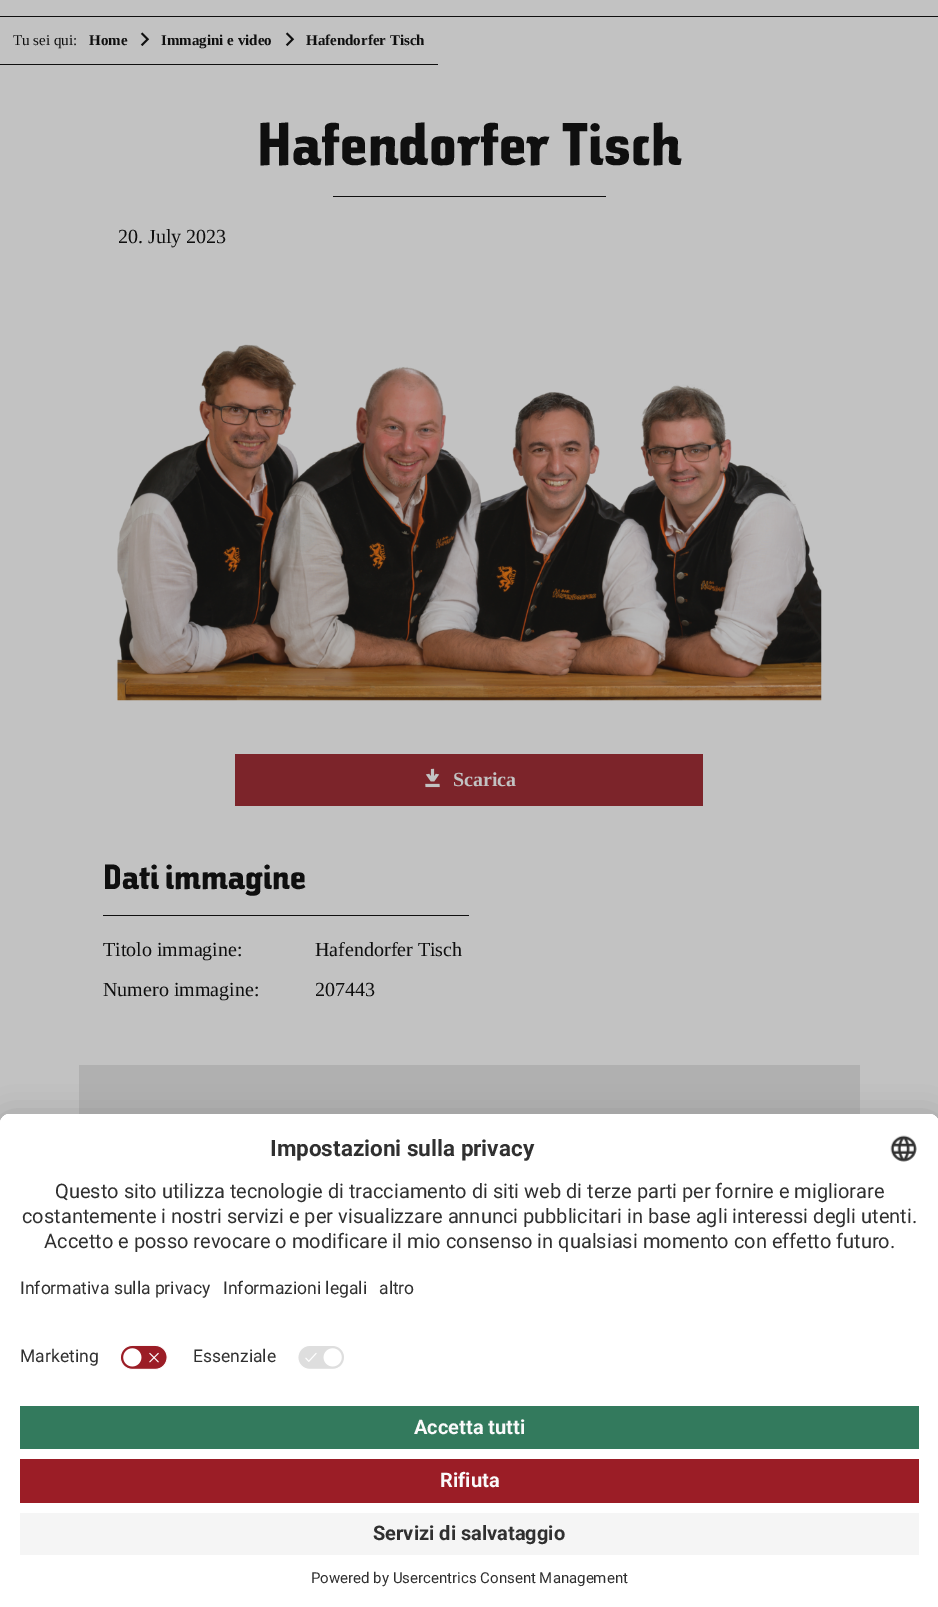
%!PS-Adobe-3.0
%%BoundingBox: 0 0 938 1607
%%LanguageLevel: 3
%%Pages: 1
%%EndComments
%%BeginProlog
/setalpha { dup .setfillconstantalpha .setstrokeconstantalpha } def
/rrect { 5 dict begin { /r /h /w /y /x } { exch def } forall
  x r add y moveto x w add y 2 copy h add r arct x w add y h add x 1 index r arct
  x y h add x y r arct x y 2 copy exch w add exch r arct closepath end } def
/softshadow { 12 dict begin { /a /b /q /h /w /y /x } { exch def } forall gsave /was 0 def
  9 -2 -9 { dup b mul 4 div /e exch def 1 sub .425 mul 2.718 exch exp 1 add a .99 .min exch div /now exch def
    1 1 now sub 1 was sub div sub setalpha /was now def
    w h .min e 2 mul add 0 gt { x e sub y e sub w e 2 mul add h e 2 mul add
      q e add b .6 mul add w h .min 2 div e add .min 0 .max rrect fill } if } for grestore end } def
/drawimage { 5 dict begin { /h /w /y /x /name } { exch def } forall
  gsave x y translate w h scale
  w h 8 [w 0 0 h 0 0] name (r) file false 3 colorimage grestore end } def
%%EndProlog
%%BeginSetup
<< /PageSize [938 1607] /PageUsesTransparency true >> setpagedevice
%%EndSetup
%%Page: 1 1
0 .pushpdf14devicefilter
0 1607 translate 1 -1 scale
4 setmiterlimit
0.761 setgray
0 0 938 1607 rectfill
0.059 setgray
0 16 938 1 rectfill
0 64 438 1 rectfill
(images/1.raw) 140 32 10 14 drawimage
(images/1.raw) 285 32 10 14 drawimage
333 196 273 1 rectfill
(images/2.raw) 117 344 705 357 drawimage
0.486 0.141 0.165 setrgbcolor
235 754 468 52 rectfill
(images/3.raw) 425 768 15 20 drawimage
0.059 setgray
103 915 366 1 rectfill
0.69 setgray
79 1065 781 49 rectfill
0 setgray
0 1120 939 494 10 16 0.22 softshadow
1 setgray
newpath 10 1114 moveto 929 1114 lineto 934.5 1114 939 1118.5 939 1124 curveto 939 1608 lineto 0 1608 lineto 0 1124 lineto 0 1118.5 4.5 1114 10 1114 curveto closepath fill
newpath 10 1114 moveto 929 1114 lineto 934.5 1114 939 1118.5 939 1124 curveto 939 1391 lineto 0 1391 lineto 0 1124 lineto 0 1118.5 4.5 1114 10 1114 curveto closepath fill
newpath 10 1114 moveto 929 1114 lineto 934.5 1114 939 1118.5 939 1124 curveto 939 1336 lineto 0 1336 lineto 0 1124 lineto 0 1118.5 4.5 1114 10 1114 curveto closepath fill
(images/4.raw) 890 1135 27 27 drawimage
(images/5.raw) 120 1345 48 25 drawimage
(images/6.raw) 298 1346 46 23 drawimage
0.2 0.478 0.365 setrgbcolor
20 1406 899 43 rectfill
0.608 0.114 0.149 setrgbcolor
20 1459 899 44 rectfill
0.961 setgray
20 1513 899 42 rectfill
/LiberationSerif-Regular [15 0 0 -15 0 0] selectfont
0.059 setgray
13 45 moveto (Tu sei qui:) show
/LiberationSerif-Bold [15 0 0 -15 0 0] selectfont
89 45 moveto (Home) show
161 45 moveto (Immagini e video) show
306 45 moveto (Hafendorfer Tisch) show
/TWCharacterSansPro-Regular [60 0 0 -60 0 0] selectfont
257 165 moveto (Hafendorfer Tisch) show
/LiberationSerif-Regular [20 0 0 -20 0 0] selectfont
118 243 moveto (20. July 2023) show
/LiberationSerif-Bold [20 0 0 -20 0 0] selectfont
0.761 setgray
453 786 moveto (Scarica) show
/TWCharacterSansPro-Regular [35 0 0 -35 0 0] selectfont
0.059 setgray
103 889 moveto (Dati immagine) show
/LiberationSerif-Regular [20 0 0 -20 0 0] selectfont
103 956 moveto (Titolo immagine:) show
315 956 moveto (Hafendorfer Tisch) show
103 996 moveto (Numero immagine:) show
315 996 moveto (207443) show
/Roboto-Bold [22.5 0 0 -22.5 0 0] selectfont
0.188 setgray
270 1156 moveto (Impostazioni sulla privacy) show
/Roboto-Regular [20 0 0 -20 0 0] selectfont
55 1198 moveto (Questo sito utilizza tecnologie di tracciamento di siti web di terze parti per fornire e migliorare) show
22 1223 moveto (costantemente i nostri servizi e per visualizzare annunci pubblicitari in base agli interessi degli utenti.) show
44 1248 moveto (Accetto e posso revocare o modificare il mio consenso in qualsiasi momento con effetto futuro.) show
/Roboto-Regular [17.5 0 0 -17.5 0 0] selectfont
20 1294 moveto (Informativa sulla privacy) show
223 1294 moveto (Informazioni legali) show
379 1294 moveto (altro) show
20 1362 moveto (Marketing) show
193 1362 moveto (Essenziale) show
/Roboto-Bold [20 0 0 -20 0 0] selectfont
0.98 setgray
414 1434 moveto (Accetta tutti) show
440 1487 moveto (Rifiuta) show
0.188 setgray
373 1540 moveto (Servizi di salvataggio) show
/Roboto-Regular [15 0 0 -15 0 0] selectfont
311 1583 moveto (Powered by Usercentrics Consent Management) show
.poppdf14devicefilter showpage
%%EOF
